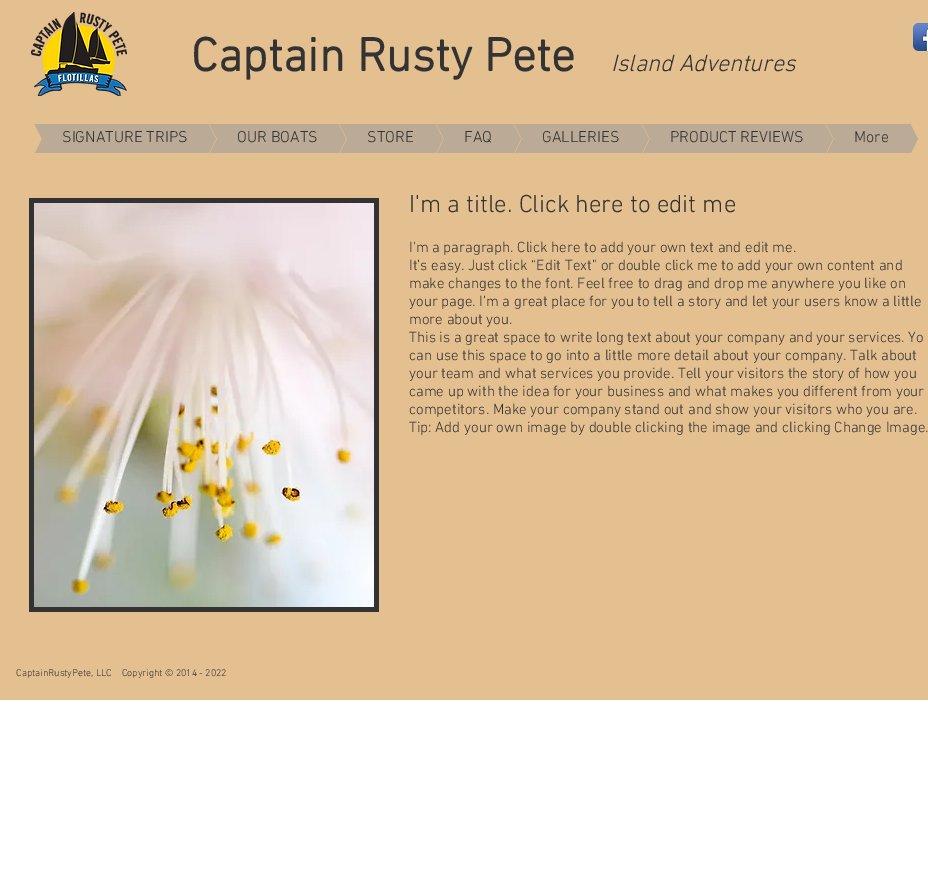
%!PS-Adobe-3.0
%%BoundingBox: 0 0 928 893
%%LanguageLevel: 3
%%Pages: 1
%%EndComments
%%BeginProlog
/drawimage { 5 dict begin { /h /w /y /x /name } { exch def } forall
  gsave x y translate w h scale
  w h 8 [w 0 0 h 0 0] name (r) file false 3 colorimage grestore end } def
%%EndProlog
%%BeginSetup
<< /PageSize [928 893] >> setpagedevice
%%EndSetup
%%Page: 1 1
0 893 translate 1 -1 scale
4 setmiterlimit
1 setgray
0 0 928 893 rectfill
0.894 0.749 0.561 setrgbcolor
0 0 928 700 rectfill
(images/1.raw) 31 12 96 84 drawimage
(images/2.raw) 913 23 15 28 drawimage
gsave
0 124 42 29 rectclip
0.733 0.667 0.584 setrgbcolor
newpath -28 -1 moveto 42 -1 lineto 42 139 lineto closepath 42 279 moveto -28 279 lineto 42 139 lineto closepath fill
grestore
0.733 0.667 0.584 setrgbcolor
42 124 104 29 rectfill
gsave
146 124 70 29 rectclip
newpath 216 139 moveto 146 139 lineto 146 -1 lineto closepath fill
newpath 146 139 moveto 216 139 lineto 146 279 lineto closepath fill
grestore
gsave
147 124 70 29 rectclip
newpath 147 -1 moveto 217 -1 lineto 217 139 lineto closepath 217 279 moveto 147 279 lineto 217 139 lineto closepath fill
grestore
217 124 59 29 rectfill
gsave
276 124 70 29 rectclip
newpath 346 139 moveto 276 139 lineto 276 -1 lineto closepath fill
newpath 276 139 moveto 346 139 lineto 276 279 lineto closepath fill
grestore
gsave
277 124 70 29 rectclip
newpath 277 -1 moveto 347 -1 lineto 347 139 lineto closepath 347 279 moveto 277 279 lineto 347 139 lineto closepath fill
grestore
347 124 26 29 rectfill
gsave
373 124 70 29 rectclip
newpath 443 139 moveto 373 139 lineto 373 -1 lineto closepath fill
newpath 373 139 moveto 443 139 lineto 373 279 lineto closepath fill
grestore
gsave
374 124 70 29 rectclip
newpath 374 -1 moveto 444 -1 lineto 444 139 lineto closepath 444 279 moveto 374 279 lineto 444 139 lineto closepath fill
grestore
444 124 7 29 rectfill
gsave
451 124 70 29 rectclip
newpath 521 139 moveto 451 139 lineto 451 -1 lineto closepath fill
newpath 451 139 moveto 521 139 lineto 451 279 lineto closepath fill
grestore
gsave
452 124 70 29 rectclip
newpath 452 -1 moveto 522 -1 lineto 522 139 lineto closepath 522 279 moveto 452 279 lineto 522 139 lineto closepath fill
grestore
522 124 57 29 rectfill
gsave
579 124 70 29 rectclip
newpath 649 139 moveto 579 139 lineto 579 -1 lineto closepath fill
newpath 579 139 moveto 649 139 lineto 579 279 lineto closepath fill
grestore
gsave
580 124 70 29 rectclip
newpath 580 -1 moveto 650 -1 lineto 650 139 lineto closepath 650 279 moveto 580 279 lineto 650 139 lineto closepath fill
grestore
650 124 113 29 rectfill
gsave
763 124 70 29 rectclip
newpath 833 139 moveto 763 139 lineto 763 -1 lineto closepath fill
newpath 763 139 moveto 833 139 lineto 763 279 lineto closepath fill
grestore
gsave
764 124 70 29 rectclip
newpath 764 -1 moveto 834 -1 lineto 834 139 lineto closepath 834 279 moveto 764 279 lineto 834 139 lineto closepath fill
grestore
834 124 14 29 rectfill
gsave
848 124 70 29 rectclip
newpath 918 139 moveto 848 139 lineto 848 -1 lineto closepath fill
newpath 848 139 moveto 918 139 lineto 848 279 lineto closepath fill
grestore
0.2 setgray
29 198 350 414 rectfill
(images/3.raw) 34 203 340 404 drawimage
/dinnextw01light-Bold [48 0 0 -48 0 0] selectfont
191 71 moveto (Captain Rusty Pete) show
/dinnextw01light-LightItalic [24 0 0 -24 0 0] selectfont
611 71 moveto (Island Adventures) show
/dinnextw01light-Light [16 0 0 -16 0 0] selectfont
62 142 moveto (SIGNATURE TRIPS) show
237 142 moveto (OUR BOATS) show
367 142 moveto (STORE) show
464 142 moveto (FAQ) show
542 142 moveto (GALLERIES) show
670 142 moveto (PRODUCT REVIEWS) show
854 142 moveto (More) show
/dinnextw01light-Light [25 0 0 -25 0 0] selectfont
409 212 moveto (I'm a title. Click here to edit me) show
/dinnextw01light-Light [15 0 0 -15 0 0] selectfont
409 252 moveto (I'm a paragraph. Click here to add your own text and edit me.) show
409 270 moveto (It’s easy. Just click “Edit Text” or double click me to add your own content and) show
409 288 moveto (make changes to the font. Feel free to drag and drop me anywhere you like on) show
409 306 moveto (your page. I’m a great place for you to tell a story and let your users know a little) show
409 324 moveto (more about you.) show
409 342 moveto (This is a great space to write long text about your company and your services. Yo) show
409 360 moveto (can use this space to go into a little more detail about your company. Talk about) show
409 378 moveto (your team and what services you provide. Tell your visitors the story of how you) show
409 396 moveto (came up with the idea for your business and what makes you different from your) show
409 414 moveto (competitors. Make your company stand out and show your visitors who you are.) show
409 432 moveto (Tip: Add your own image by double clicking the image and clicking Change Image.) show
/dinnextw01light-Light [10 0 0 -10 0 0] selectfont
16 676 moveto (CaptainRustyPete, LLC    Copyright © 2014 - 2022) show
showpage
%%EOF
